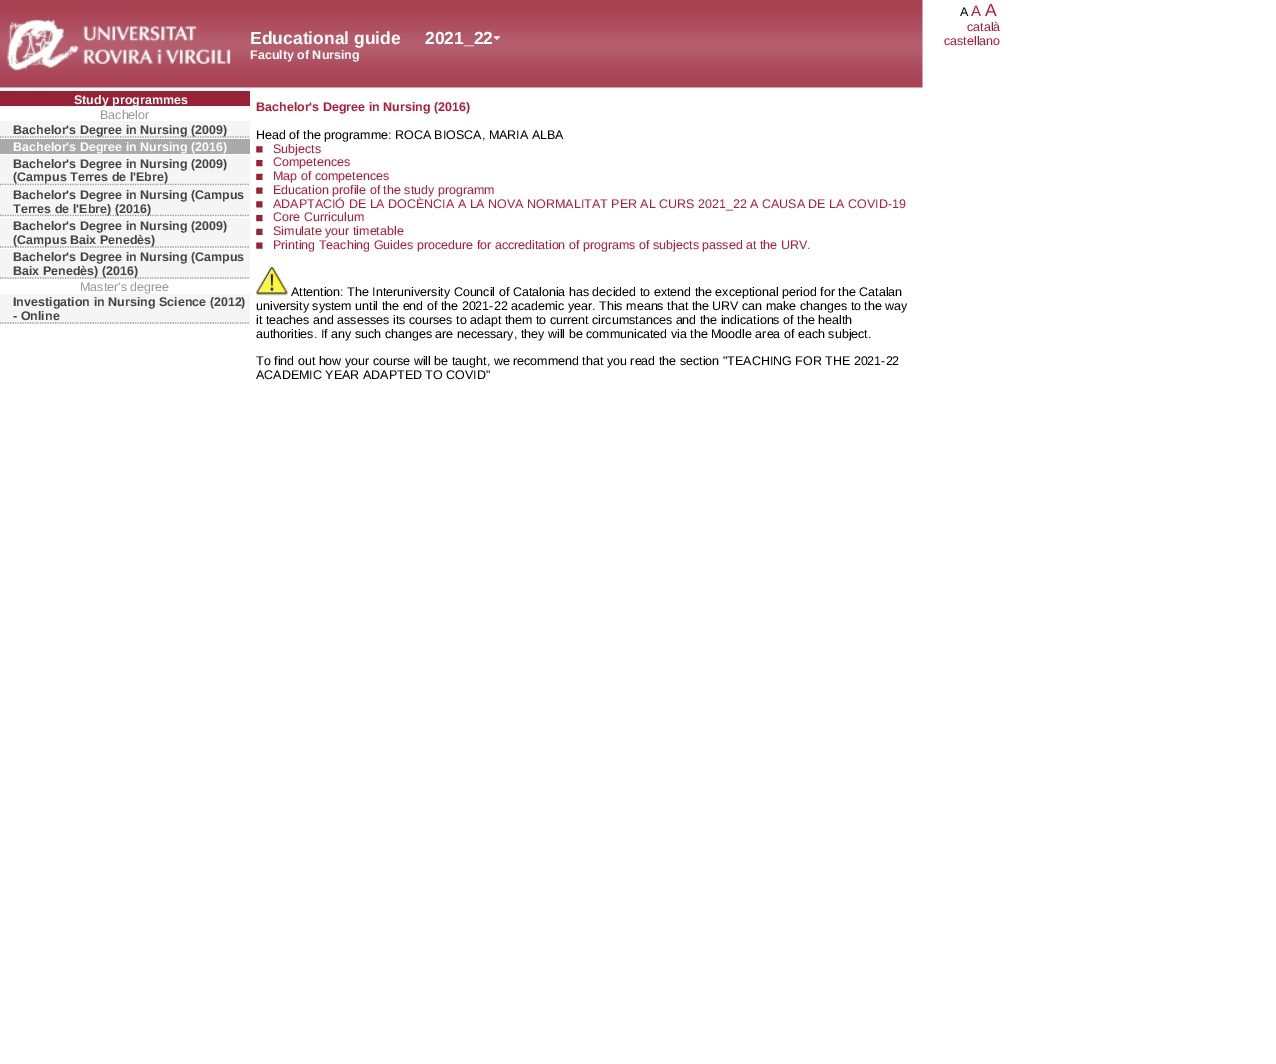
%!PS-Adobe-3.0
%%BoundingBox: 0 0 1276 1064
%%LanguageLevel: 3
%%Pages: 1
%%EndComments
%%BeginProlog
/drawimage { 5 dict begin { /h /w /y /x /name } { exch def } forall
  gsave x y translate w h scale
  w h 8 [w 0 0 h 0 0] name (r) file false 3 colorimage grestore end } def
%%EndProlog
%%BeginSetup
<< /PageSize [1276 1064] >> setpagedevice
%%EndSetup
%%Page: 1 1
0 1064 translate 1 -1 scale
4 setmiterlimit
1 setgray
0 0 1276 1064 rectfill
(images/1.raw) 0 0 923 88 drawimage
0.6 0.129 0.208 setrgbcolor
0 91 250 15 rectfill
0.965 0.961 0.961 setrgbcolor
0 121 250 17 rectfill
0.6 setgray
1.2 setlinewidth
[1.25 1.25] 0 setdash
newpath 0 137 moveto 250 137 lineto stroke
0.667 setgray
0 139 250 15 rectfill
0.965 0.961 0.961 setrgbcolor
0 155 250 30 rectfill
0.6 setgray
newpath 0 184.5 moveto 250 184.5 lineto stroke
0.965 0.961 0.961 setrgbcolor
0 186 250 30 rectfill
0.6 setgray
newpath 0 215.5 moveto 250 215.5 lineto stroke
0.965 0.961 0.961 setrgbcolor
0 218 250 30 rectfill
0.6 setgray
newpath 0 247 moveto 250 247 lineto stroke
0.965 0.961 0.961 setrgbcolor
0 249 250 30 rectfill
0.6 setgray
newpath 0 278 moveto 250 278 lineto stroke
0.965 0.961 0.961 setrgbcolor
0 294 250 30 rectfill
0.6 setgray
newpath 0 323 moveto 250 323 lineto stroke
(images/2.raw) 256 146 7 7 drawimage
(images/3.raw) 256 160 7 7 drawimage
(images/4.raw) 256 173 7 7 drawimage
(images/5.raw) 256 187 7 7 drawimage
(images/2.raw) 256 201 7 7 drawimage
(images/3.raw) 256 215 7 7 drawimage
(images/4.raw) 256 228 7 7 drawimage
(images/5.raw) 256 242 7 7 drawimage
(images/6.raw) 256 266 32 30 drawimage
(images/7.raw) 493 36 7 4 drawimage
/LiberationSans-Bold [17.5 0 0 -17.5 0 0] selectfont
1 setgray
250 44 moveto (Educational guide) show
/LiberationSans-Bold [12.5 0 0 -12.5 0 0] selectfont
250 59 moveto (Faculty of Nursing) show
/LiberationSans-Regular [12.5 0 0 -12.5 0 0] selectfont
0 setgray
960 16 moveto (A) show
/LiberationSans-Regular [15 0 0 -15 0 0] selectfont
0.702 0.106 0.204 setrgbcolor
971 16 moveto (A) show
/LiberationSans-Regular [17.5 0 0 -17.5 0 0] selectfont
985 16 moveto (A) show
/LiberationSans-Regular [12.5 0 0 -12.5 0 0] selectfont
967 31 moveto (català) show
944 45 moveto (castellano) show
/LiberationSans-Bold [12.5 0 0 -12.5 0 0] selectfont
1 setgray
74 104 moveto (Study programmes) show
/LiberationSans-Regular [12.5 0 0 -12.5 0 0] selectfont
0.6 setgray
100 119 moveto (Bachelor) show
/LiberationSans-Bold [12.5 0 0 -12.5 0 0] selectfont
0.267 setgray
13 134 moveto (Bachelor's Degree in Nursing \(2009\)) show
1 setgray
13 151 moveto (Bachelor's Degree in Nursing \(2016\)) show
0.267 setgray
13 168 moveto (Bachelor's Degree in Nursing \(2009\)) show
13 181 moveto (\(Campus Terres de l'Ebre\)) show
13 199 moveto (Bachelor's Degree in Nursing \(Campus) show
13 213 moveto (Terres de l'Ebre\) \(2016\)) show
13 230 moveto (Bachelor's Degree in Nursing \(2009\)) show
13 244 moveto (\(Campus Baix Penedès\)) show
13 261 moveto (Bachelor's Degree in Nursing \(Campus) show
13 275 moveto (Baix Penedès\) \(2016\)) show
/LiberationSans-Regular [12.5 0 0 -12.5 0 0] selectfont
0.6 setgray
80 291 moveto (Master's degree) show
/LiberationSans-Bold [12.5 0 0 -12.5 0 0] selectfont
0.267 setgray
13 306 moveto (Investigation in Nursing Science \(2012\)) show
13 320 moveto (- Online) show
0.702 0.106 0.204 setrgbcolor
256 111 moveto (Bachelor's Degree in Nursing \(2016\)) show
/LiberationSans-Regular [12.5 0 0 -12.5 0 0] selectfont
0 setgray
256 139 moveto (Head of the programme: ROCA BIOSCA, MARIA ALBA) show
0.702 0.106 0.204 setrgbcolor
273 153 moveto (Subjects) show
273 166 moveto (Competences) show
273 180 moveto (Map of competences) show
273 194 moveto (Education profile of the study programm) show
273 208 moveto (ADAPTACIÓ DE LA DOCÈNCIA A LA NOVA NORMALITAT PER AL CURS 2021_22 A CAUSA DE LA COVID-19) show
273 221 moveto (Core Curriculum) show
273 235 moveto (Simulate your timetable) show
273 249 moveto (Printing Teaching Guides procedure for accreditation of programs of subjects passed at the URV.) show
0 setgray
291 296 moveto (Attention: The Interuniversity Council of Catalonia has decided to extend the exceptional period for the Catalan) show
256 310 moveto (university system until the end of the 2021-22 academic year. This means that the URV can make changes to the way) show
256 324 moveto (it teaches and assesses its courses to adapt them to current circumstances and the indications of the health) show
256 338 moveto (authorities. If any such changes are necessary, they will be communicated via the Moodle area of each subject.) show
256 365 moveto (To find out how your course will be taught, we recommend that you read the section "TEACHING FOR THE 2021-22) show
256 379 moveto (ACADEMIC YEAR ADAPTED TO COVID") show
/LiberationSans-Bold [17.5 0 0 -17.5 0 0] selectfont
1 setgray
425 44 moveto (2021_22) show
showpage
%%EOF
